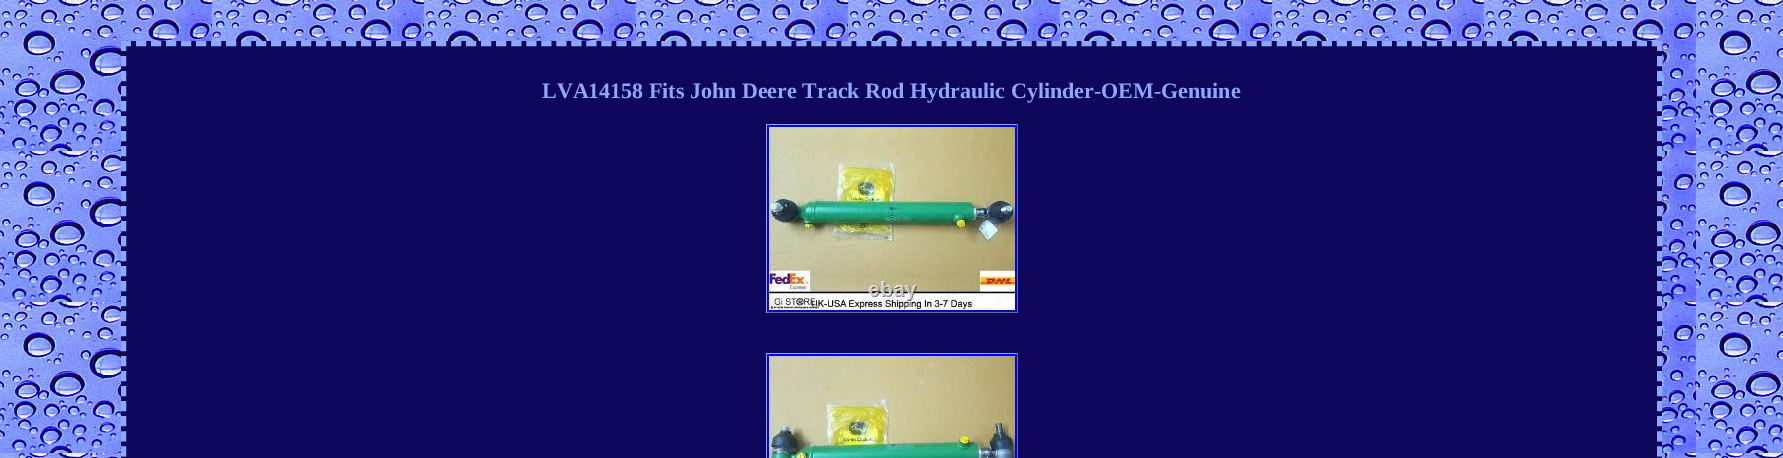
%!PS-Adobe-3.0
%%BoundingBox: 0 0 1783 458
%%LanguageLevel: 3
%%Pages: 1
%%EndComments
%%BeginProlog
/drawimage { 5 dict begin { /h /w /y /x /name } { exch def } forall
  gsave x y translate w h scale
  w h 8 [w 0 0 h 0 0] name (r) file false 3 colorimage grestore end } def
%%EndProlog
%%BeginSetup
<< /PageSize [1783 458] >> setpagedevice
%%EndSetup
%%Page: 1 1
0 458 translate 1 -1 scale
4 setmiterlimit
1 setgray
0 0 1783 458 rectfill
(images/1.raw) 0 0 1783 458 drawimage
0.059 0.027 0.361 setrgbcolor
121 41 1541 417 rectfill
0.553 0.655 0.984 setrgbcolor
5 setlinewidth
[10 5.01] 0 setdash
newpath 121 43.5 moveto 1662 43.5 lineto stroke
newpath 1659.5 41 moveto 1659.5 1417 lineto stroke
newpath 123.5 41 moveto 123.5 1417 lineto stroke
766 124 252 1 rectfill
0.369 0.435 0.655 setrgbcolor
1017 124 1 189 rectfill
766 312 252 1 rectfill
0.553 0.655 0.984 setrgbcolor
766 124 1 189 rectfill
(images/2.raw) 767 125 250 187 drawimage
766 353 252 1 rectfill
766 353 1 105 rectfill
(images/3.raw) 767 354 250 104 drawimage
0.369 0.435 0.655 setrgbcolor
1017 353 1 105 rectfill
/LiberationSerif-Bold [22 0 0 -22 0 0] selectfont
0.553 0.655 0.984 setrgbcolor
542 98 moveto (LVA14158 Fits John Deere Track Rod Hydraulic Cylinder-OEM-Genuine) show
showpage
%%EOF
